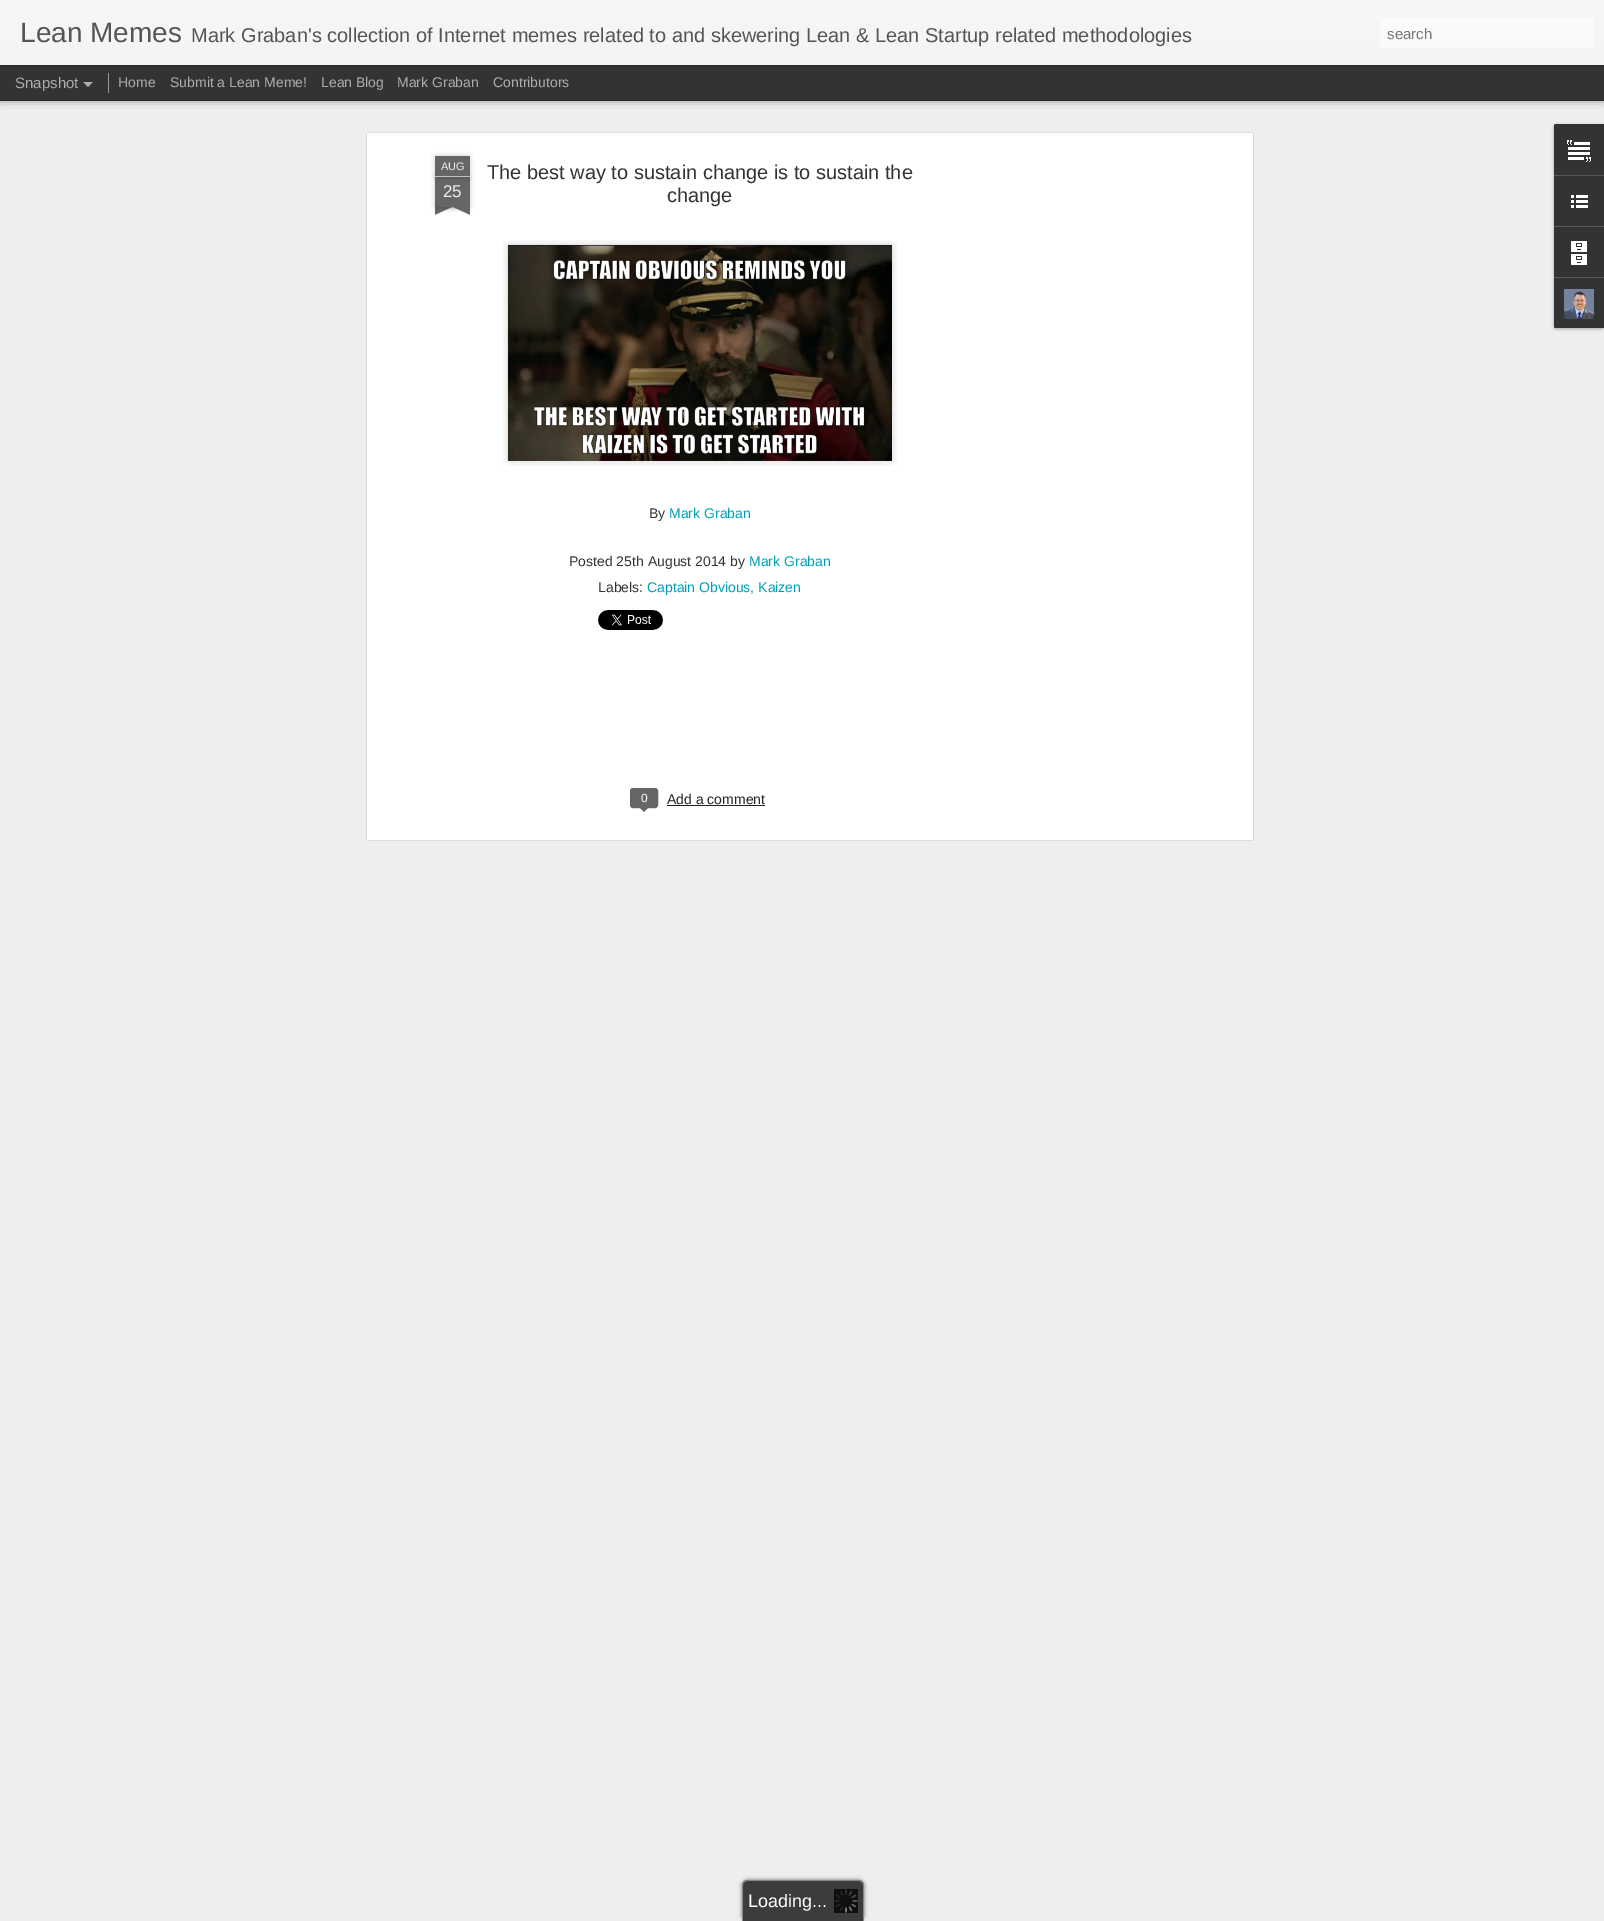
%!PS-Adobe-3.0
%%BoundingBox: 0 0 1604 1921
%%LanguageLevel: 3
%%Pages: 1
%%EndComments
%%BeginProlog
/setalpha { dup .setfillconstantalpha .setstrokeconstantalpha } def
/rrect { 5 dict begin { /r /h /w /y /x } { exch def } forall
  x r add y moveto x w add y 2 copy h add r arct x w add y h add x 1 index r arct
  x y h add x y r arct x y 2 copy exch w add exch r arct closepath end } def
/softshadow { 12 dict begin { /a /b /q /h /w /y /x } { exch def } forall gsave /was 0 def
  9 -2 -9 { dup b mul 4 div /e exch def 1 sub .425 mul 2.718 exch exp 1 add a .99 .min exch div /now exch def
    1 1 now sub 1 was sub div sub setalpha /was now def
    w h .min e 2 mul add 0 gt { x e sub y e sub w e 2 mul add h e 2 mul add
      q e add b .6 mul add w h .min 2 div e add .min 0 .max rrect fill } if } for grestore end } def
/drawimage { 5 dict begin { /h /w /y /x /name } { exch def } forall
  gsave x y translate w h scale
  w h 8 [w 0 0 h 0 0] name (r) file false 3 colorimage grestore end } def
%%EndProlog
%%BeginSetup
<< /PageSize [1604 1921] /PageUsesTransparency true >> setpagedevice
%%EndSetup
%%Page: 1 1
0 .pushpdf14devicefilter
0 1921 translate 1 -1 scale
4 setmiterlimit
0.2 setgray
0 0 1604 1921 rectfill
0.933 setgray
0 101 1604 1820 rectfill
0 setgray
0 65 1604 35 0 4 0.5 softshadow
0.2 setgray
0 65 1604 35 rectfill
0.6 setgray
108 73 1 20 rectfill
0 setgray
0 0 1604 65 0 2.5 0.3 softshadow
gsave newpath 0 0 moveto 1604 0 lineto 1604 65 lineto 0 65 lineto closepath clip newpath
<< /ShadingType 2 /ColorSpace /DeviceRGB /Coords [0 0 0 65] /Extend [true true] /Function << /FunctionType 2 /Domain [0 1] /C0 [0.969 0.969 0.969] /C1 [0.957 0.957 0.957] /N 1 >> >> shfill grestore
0.98 setgray
1380 18 214 30 3 rrect fill
0.678 setgray
newpath 83 82 moveto 93 82 lineto 88 87 lineto closepath fill
1 setgray
365 131 890 711 rectfill
(images/1.raw) 365 131 890 711 drawimage
0 setgray
435 177 35 30 0 2.5 0.2 softshadow
0.4 setgray
435 177 35 30 rectfill
0 setgray
435 156 35 21 1 2.5 0.2 softshadow
0.4 setgray
newpath 436 156 moveto 469 156 lineto 469.5 156 470 156.5 470 157 curveto 470 177 lineto 435 177 lineto 435 157 lineto 435 156.5 435.5 156 436 156 curveto closepath fill
0.761 setgray
435 176 35 1 rectfill
gsave
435 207 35 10 rectclip
0 setgray
426 197 50 10 0 2.5 0.2 softshadow
grestore
gsave
435 207 35 10 rectclip
0.4 setgray
newpath 426 208 moveto 472 187 lineto 476 196 lineto 430 217 lineto closepath fill
grestore
gsave
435 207 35 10 rectclip
0 setgray
429 197 50 10 0 2.5 0.2 softshadow
grestore
gsave
435 207 35 10 rectclip
0.4 setgray
newpath 433 187 moveto 479 208 lineto 475 217 lineto 429 196 lineto closepath fill
grestore
(images/2.raw) 503 240 394 226 drawimage
(images/3.raw) 507 244 385 217 drawimage
(images/4.raw) 598 610 65 20 drawimage
0.4 setgray
630.5 788.5 27 19 2.5 rrect gsave fill grestore
stroke
newpath 639 807 moveto 649 807 lineto 644 812 lineto closepath fill
0.133 setgray
667 805 98 1 rectfill
0 setgray
1554 125 50 204 2 1.5 0.3 softshadow
0.2 setgray
newpath 1556 124 moveto 1604 124 lineto 1604 328 lineto 1556 328 lineto 1555 328 1554 327 1554 326 curveto 1554 126 lineto 1554 125 1555 124 1556 124 curveto closepath fill
newpath 1556 124 moveto 1604 124 lineto 1604 175 lineto 1554 175 lineto 1554 126 lineto 1554 125 1555 124 1556 124 curveto closepath fill
(images/5.raw) 1567 140 24 22 drawimage
0.345 setgray
1554 175 50 1 rectfill
(images/6.raw) 1571 195 17 13 drawimage
1554 226 50 1 rectfill
(images/7.raw) 1571 241 16 24 drawimage
0.2 setgray
newpath 1554 277 moveto 1604 277 lineto 1604 328 lineto 1556 328 lineto 1555 328 1554 327 1554 326 curveto closepath fill
0.345 setgray
1554 277 50 1 rectfill
(images/8.raw) 1564 289 30 30 drawimage
0.384 setgray
742 1880 122 41 6 2 1 softshadow
0.235 setgray
newpath 748 1880 moveto 858 1880 lineto 861.5 1880 864 1882.5 864 1886 curveto 864 1921 lineto 742 1921 lineto 742 1886 lineto 742 1882.5 744.5 1880 748 1880 curveto closepath fill
0.533 setgray
newpath 748 1880 moveto 858 1880 lineto 861 1880 864 1883 864 1886 curveto 864 1921 lineto 742 1921 lineto 742 1886 lineto 742 1883 745 1880 748 1880 curveto closepath 748 1881 moveto 858 1881 lineto 861 1881 863 1883 863 1886 curveto 863 1921 lineto 743 1921 lineto 743 1886 lineto 743 1883 745 1881 748 1881 curveto closepath eofill
(images/9.raw) 834 1889 24 24 drawimage
/LiberationSans-Regular [28 0 0 -28 0 0] selectfont
0.333 setgray
20 42 moveto (Lean Memes) show
/LiberationSans-Regular [20 0 0 -20 0 0] selectfont
191 42 moveto (Mark Graban's collection of Internet memes related to and skewering Lean & Lean Startup related methodologies) show
/LiberationSans-Regular [15 0 0 -15 0 0] selectfont
0.459 setgray
1387 39 moveto (search) show
0.678 setgray
15 88 moveto (Snapshot) show
/LiberationSans-Regular [14 0 0 -14 0 0] selectfont
118 87 moveto (Home) show
170 87 moveto (Submit a Lean Meme!) show
321 87 moveto (Lean Blog) show
397 87 moveto (Mark Graban) show
493 87 moveto (Contributors) show
/LiberationSans-Regular [11 0 0 -11 0 0] selectfont
0.933 setgray
441 170 moveto (AUG) show
/LiberationSans-Regular [17 0 0 -17 0 0] selectfont
443 197 moveto (25) show
/LiberationSans-Regular [20 0 0 -20 0 0] selectfont
0.2 setgray
487 179 moveto (The best way to sustain change is to sustain the) show
667 202 moveto (change) show
/LiberationSans-Regular [14 0 0 -14 0 0] selectfont
649 518 moveto (By) show
0 0.62 0.722 setrgbcolor
669 518 moveto (Mark Graban) show
0.2 setgray
569 566 moveto (Posted 25th August 2014 by) show
0 0.62 0.722 setrgbcolor
749 566 moveto (Mark Graban) show
0.2 setgray
598 592 moveto (Labels:) show
0 0.62 0.722 setrgbcolor
647 592 moveto (Captain Obvious, Kaizen) show
/LiberationSans-Regular [12 0 0 -12 0 0] selectfont
1 setgray
641 802 moveto (0) show
/LiberationSans-Regular [14 0 0 -14 0 0] selectfont
0.133 setgray
667 804 moveto (Add a comment) show
/LiberationSans-Regular [18 0 0 -18 0 0] selectfont
1 setgray
748 1907 moveto (Loading...) show
.poppdf14devicefilter showpage
%%EOF
